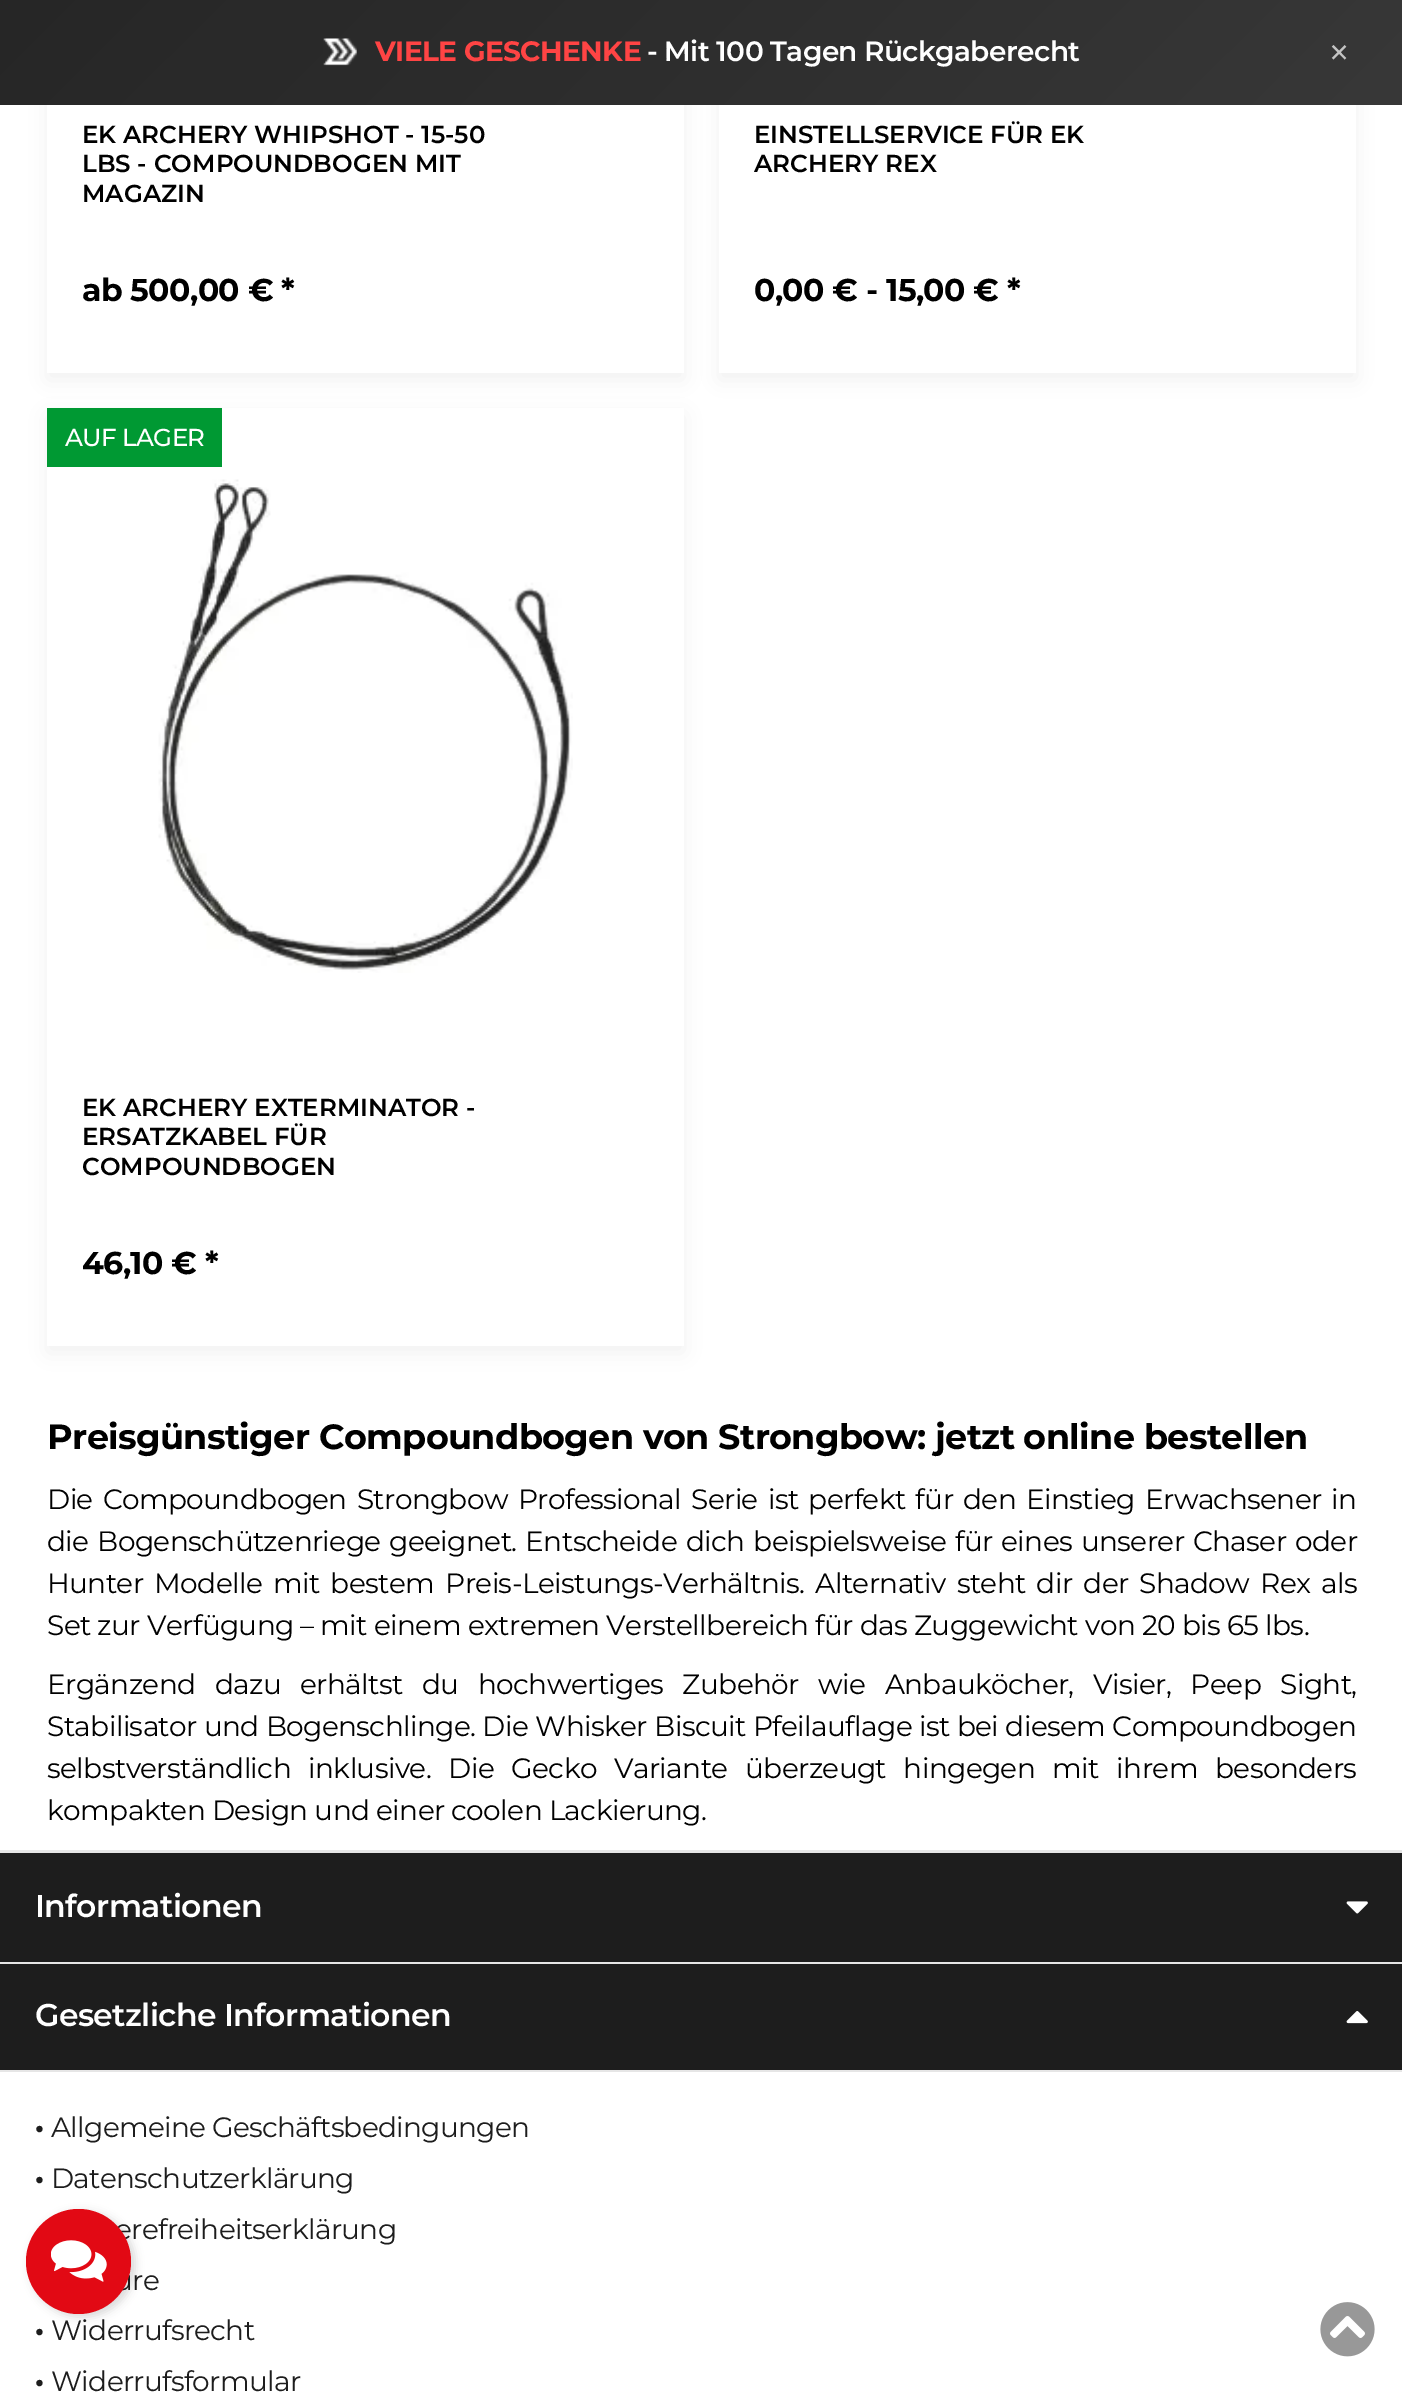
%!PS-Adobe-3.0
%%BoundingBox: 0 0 1402 2401
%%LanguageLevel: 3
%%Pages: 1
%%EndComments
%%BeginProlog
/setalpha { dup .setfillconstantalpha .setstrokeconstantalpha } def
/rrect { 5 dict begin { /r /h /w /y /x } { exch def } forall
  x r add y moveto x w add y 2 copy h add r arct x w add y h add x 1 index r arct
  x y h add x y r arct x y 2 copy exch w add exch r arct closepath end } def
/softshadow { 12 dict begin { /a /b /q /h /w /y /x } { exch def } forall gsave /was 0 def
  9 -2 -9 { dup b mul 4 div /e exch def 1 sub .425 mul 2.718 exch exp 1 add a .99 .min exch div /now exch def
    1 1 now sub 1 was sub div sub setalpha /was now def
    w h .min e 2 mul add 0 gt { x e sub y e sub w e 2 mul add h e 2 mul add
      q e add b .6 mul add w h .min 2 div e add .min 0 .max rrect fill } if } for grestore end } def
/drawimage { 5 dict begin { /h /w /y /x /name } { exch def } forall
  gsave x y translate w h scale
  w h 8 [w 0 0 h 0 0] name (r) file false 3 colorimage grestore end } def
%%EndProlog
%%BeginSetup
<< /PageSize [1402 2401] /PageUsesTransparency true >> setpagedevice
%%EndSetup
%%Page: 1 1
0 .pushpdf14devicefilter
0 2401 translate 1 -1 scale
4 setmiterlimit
1 setgray
0 0 1402 2401 rectfill
gsave
newpath 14 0 moveto 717 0 lineto 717 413 lineto 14 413 lineto closepath 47 -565 moveto 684 -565 lineto 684 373 lineto 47 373 lineto closepath eoclip newpath
0 setgray
47 -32 637 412 0 10.5 0.06 softshadow
grestore
gsave
newpath 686 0 moveto 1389 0 lineto 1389 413 lineto 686 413 lineto closepath 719 -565 moveto 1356 -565 lineto 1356 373 lineto 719 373 lineto closepath eoclip newpath
0 setgray
719 -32 637 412 0 10.5 0.06 softshadow
grestore
gsave newpath 0 0 moveto 1402 0 lineto 1402 105 lineto 0 105 lineto closepath clip newpath
<< /ShadingType 2 /ColorSpace /DeviceRGB /Coords [325 -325 1079 430] /Extend [true true] /Function << /FunctionType 2 /Domain [0 1] /C0 [0.102 0.102 0.102] /C1 [0.176 0.176 0.176] /N 1 >> >> shfill grestore
0.05 setalpha
0 0 1402 105 rectfill
1 setalpha
(images/1.raw) 323 38 34 28 drawimage
gsave
newpath 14 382 moveto 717 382 lineto 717 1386 lineto 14 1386 lineto closepath 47 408 moveto 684 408 lineto 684 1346 lineto 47 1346 lineto closepath eoclip newpath
0 setgray
47 415 637 938 0 10.5 0.06 softshadow
grestore
0 0.6 0.2 setrgbcolor
47 408 175 59 rectfill
(images/2.raw) 158 479 415 494 drawimage
0.902 setgray
0 1850 1402 3 rectfill
0.114 setgray
0 1853 1402 109 rectfill
0.902 setgray
0 1962 1402 2 rectfill
(images/3.raw) 1346 1901 22 13 drawimage
0.114 setgray
0 1964 1402 106 rectfill
0.902 setgray
0 2070 1402 2 rectfill
(images/4.raw) 1346 2011 22 13 drawimage
(images/5.raw) 1320 2302 55 55 drawimage
0 setgray
30 2212 105 105 52.5 4.5 0.15 softshadow
/Montserrat-Thin [28 0 0 -28 0 0] selectfont
1 0.267 0.267 setrgbcolor
375 61 moveto -0.6 0 (VIELE GESCHENKE) ashow
/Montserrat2-Thin [28 0 0 -28 0 0] selectfont
1 setgray
647 61 moveto -0.6 0 (- Mit 100 Tagen Rückgaberecht) ashow
/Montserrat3-Thin [42 0 0 -42 0 0] selectfont
0.765 setgray
1327 67 moveto (×) show
/Montserrat2-Thin [24.5 0 0 -24.5 0 0] selectfont
0 setgray
82 143 moveto (EK ARCHERY WHIPSHOT - 15-50) show
82 172 moveto (LBS - COMPOUNDBOGEN MIT) show
82 202 moveto (MAGAZIN) show
/Montserrat-Thin [31.5 0 0 -31.5 0 0] selectfont
82 301 moveto -0.6 0 (ab 500,00 € *) ashow
/Montserrat2-Thin [24.5 0 0 -24.5 0 0] selectfont
754 143 moveto (EINSTELLSERVICE FÜR EK) show
754 172 moveto (ARCHERY REX) show
/Montserrat-Thin [31.5 0 0 -31.5 0 0] selectfont
754 301 moveto -0.6 0 (0,00 € - 15,00 € *) ashow
/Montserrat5-Thin [24.5 0 0 -24.5 0 0] selectfont
1 setgray
65 446 moveto -0.6 0 (AUF LAGER) ashow
/Montserrat2-Thin [24.5 0 0 -24.5 0 0] selectfont
0 setgray
82 1116 moveto (EK ARCHERY EXTERMINATOR -) show
82 1145 moveto (ERSATZKABEL FÜR) show
82 1175 moveto (COMPOUNDBOGEN) show
/Montserrat-Thin [31.5 0 0 -31.5 0 0] selectfont
82 1274 moveto -0.6 0 (46,10 € *) ashow
/Montserrat-Thin [35 0 0 -35 0 0] selectfont
47 1449 moveto -0.6 0 (Preisgünstiger Compoundbogen von Strongbow: jetzt online bestellen) ashow
/Montserrat3-Thin [28 0 0 -28 0 0] selectfont
47 1509 moveto 3.1 0 32 -0.6 0 (Die Compoundbogen Strongbow Professional Serie ist perfekt für den Einstieg Erwachsener in) awidthshow
47 1551 moveto 1.9 0 32 -0.6 0 (die Bogenschützenriege geeignet. Entscheide dich beispielsweise für eines unserer Chaser oder) awidthshow
47 1593 moveto 4 0 32 -0.6 0 (Hunter Modelle mit bestem Preis-Leistungs-Verhältnis. Alternativ steht dir der Shadow Rex als) awidthshow
47 1635 moveto -0.6 0 (Set zur Verfügung – mit einem extremen Verstellbereich für das Zuggewicht von 20 bis 65 lbs.) ashow
47 1694 moveto 12.5 0 32 -0.6 0 (Ergänzend dazu erhältst du hochwertiges Zubehör wie Anbauköcher, Visier, Peep Sight,) awidthshow
47 1736 moveto 0.25 0 32 -0.6 0 (Stabilisator und Bogenschlinge. Die Whisker Biscuit Pfeilauflage ist bei diesem Compoundbogen) awidthshow
47 1778 moveto 10.5 0 32 -0.6 0 (selbstverständlich inklusive. Die Gecko Variante überzeugt hingegen mit ihrem besonders) awidthshow
47 1820 moveto -0.6 0 (kompakten Design und einer coolen Lackierung.) ashow
/Montserrat2-Thin [31.5 0 0 -31.5 0 0] selectfont
1 setgray
35 1917 moveto -0.6 0 (Informationen) ashow
35 2026 moveto -0.6 0 (Gesetzliche Informationen) ashow
/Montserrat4-Thin [28 0 0 -28 0 0] selectfont
0.114 setgray
35 2137 moveto -0.7 0 (·) ashow
/Montserrat3-Thin [28 0 0 -28 0 0] selectfont
51 2137 moveto -0.7 0 (Allgemeine Geschäftsbedingungen) ashow
/Montserrat4-Thin [28 0 0 -28 0 0] selectfont
35 2188 moveto -0.7 0 (·) ashow
/Montserrat3-Thin [28 0 0 -28 0 0] selectfont
51 2188 moveto -0.7 0 (Datenschutzerklärung) ashow
115 2239 moveto -0.7 0 (erefreiheitserklärung) ashow
114 2290 moveto -0.7 0 (ure) ashow
/Montserrat4-Thin [28 0 0 -28 0 0] selectfont
35 2340 moveto -0.7 0 (·) ashow
/Montserrat3-Thin [28 0 0 -28 0 0] selectfont
51 2340 moveto -0.7 0 (Widerrufsrecht) ashow
/Montserrat4-Thin [28 0 0 -28 0 0] selectfont
35 2391 moveto -0.7 0 (·) ashow
/Montserrat3-Thin [28 0 0 -28 0 0] selectfont
51 2391 moveto -0.7 0 (Widerrufsformular) ashow
0.886 0.035 0.078 setrgbcolor
newpath 78.5 2261.5 52.5 0 360 arc closepath fill
(images/6.raw) 51 2240 56 42 drawimage
.poppdf14devicefilter showpage
%%EOF
